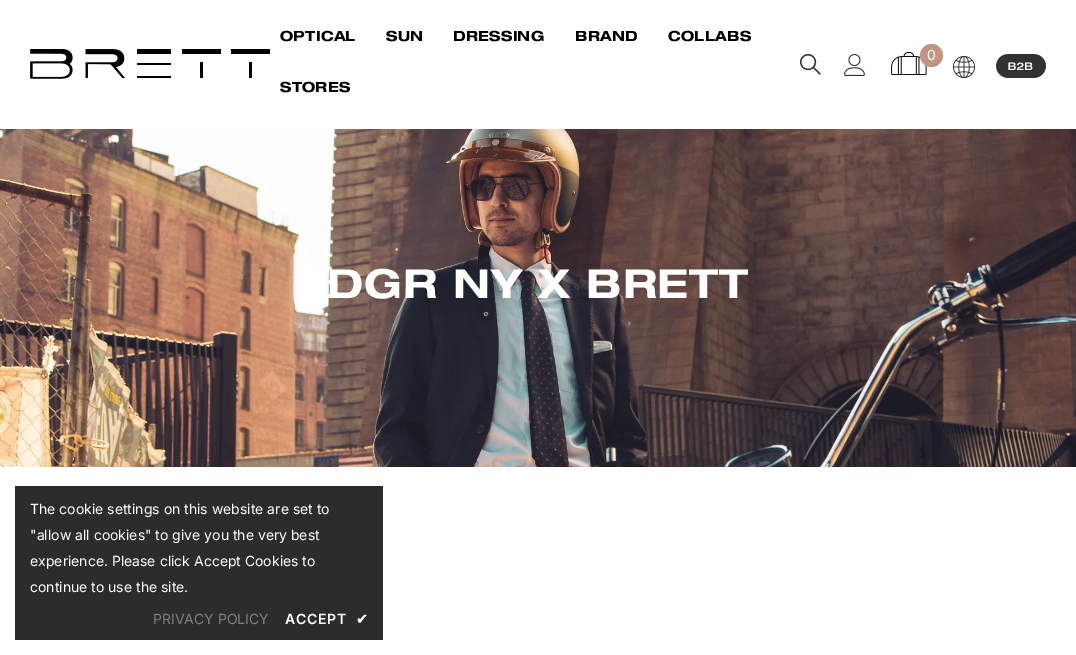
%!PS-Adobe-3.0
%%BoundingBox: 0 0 1076 655
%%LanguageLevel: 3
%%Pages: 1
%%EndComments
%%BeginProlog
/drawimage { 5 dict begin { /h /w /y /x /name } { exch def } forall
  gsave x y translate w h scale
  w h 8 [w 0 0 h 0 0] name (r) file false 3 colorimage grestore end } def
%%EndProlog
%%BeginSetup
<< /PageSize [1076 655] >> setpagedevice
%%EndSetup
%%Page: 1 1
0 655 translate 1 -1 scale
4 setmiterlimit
1 setgray
0 0 1076 655 rectfill
(images/1.raw) 30 49 240 30 drawimage
(images/2.raw) 799 53 22 22 drawimage
(images/3.raw) 844 54 21 22 drawimage
(images/4.raw) 891 52 36 23 drawimage
0.761 0.584 0.51 setrgbcolor
newpath 931.5 55.5 11.5 0 360 arc closepath fill
(images/5.raw) 952 55 24 24 drawimage
(images/6.raw) 996 54 50 24 drawimage
(images/7.raw) 0 129 1076 338 drawimage
0.173 setgray
15 486 368 154 rectfill
/HelveticaNeue-Bold [14 0 0 -14 0 0] selectfont
0 setgray
280 41 moveto 0.25 0 (OPTICAL) ashow
386 41 moveto 0.25 0 (SUN) ashow
453 41 moveto 0.25 0 (DRESSING) ashow
575 41 moveto 0.25 0 (BRAND) ashow
668 41 moveto 0.25 0 (COLLABS) ashow
280 92 moveto 0.25 0 (STORES) ashow
/Inter-Regular [14 0 0 -14 0 0] selectfont
1 setgray
927 60 moveto (0) show
/HelveticaNeue-Bold [40 0 0 -40 0 0] selectfont
327 298 moveto 0.75 0 (DGR NY X BRETT) ashow
/Inter-Regular [14 0 0 -14 0 0] selectfont
30 514 moveto (The cookie settings on this website are set to) show
30 540 moveto ("allow all cookies" to give you the very best) show
30 566 moveto (experience. Please click Accept Cookies to) show
30 592 moveto (continue to use the site.) show
0.506 setgray
153 624 moveto (PRIVACY POLICY) show
/Inter-SemiBold [14 0 0 -14 0 0] selectfont
1 setgray
285 624 moveto 0.75 0 (ACCEPT) ashow
/DejaVuSans-Bold [14 0 0 -14 0 0] selectfont
356 624 moveto 0.75 0 (✔) ashow
showpage
%%EOF
